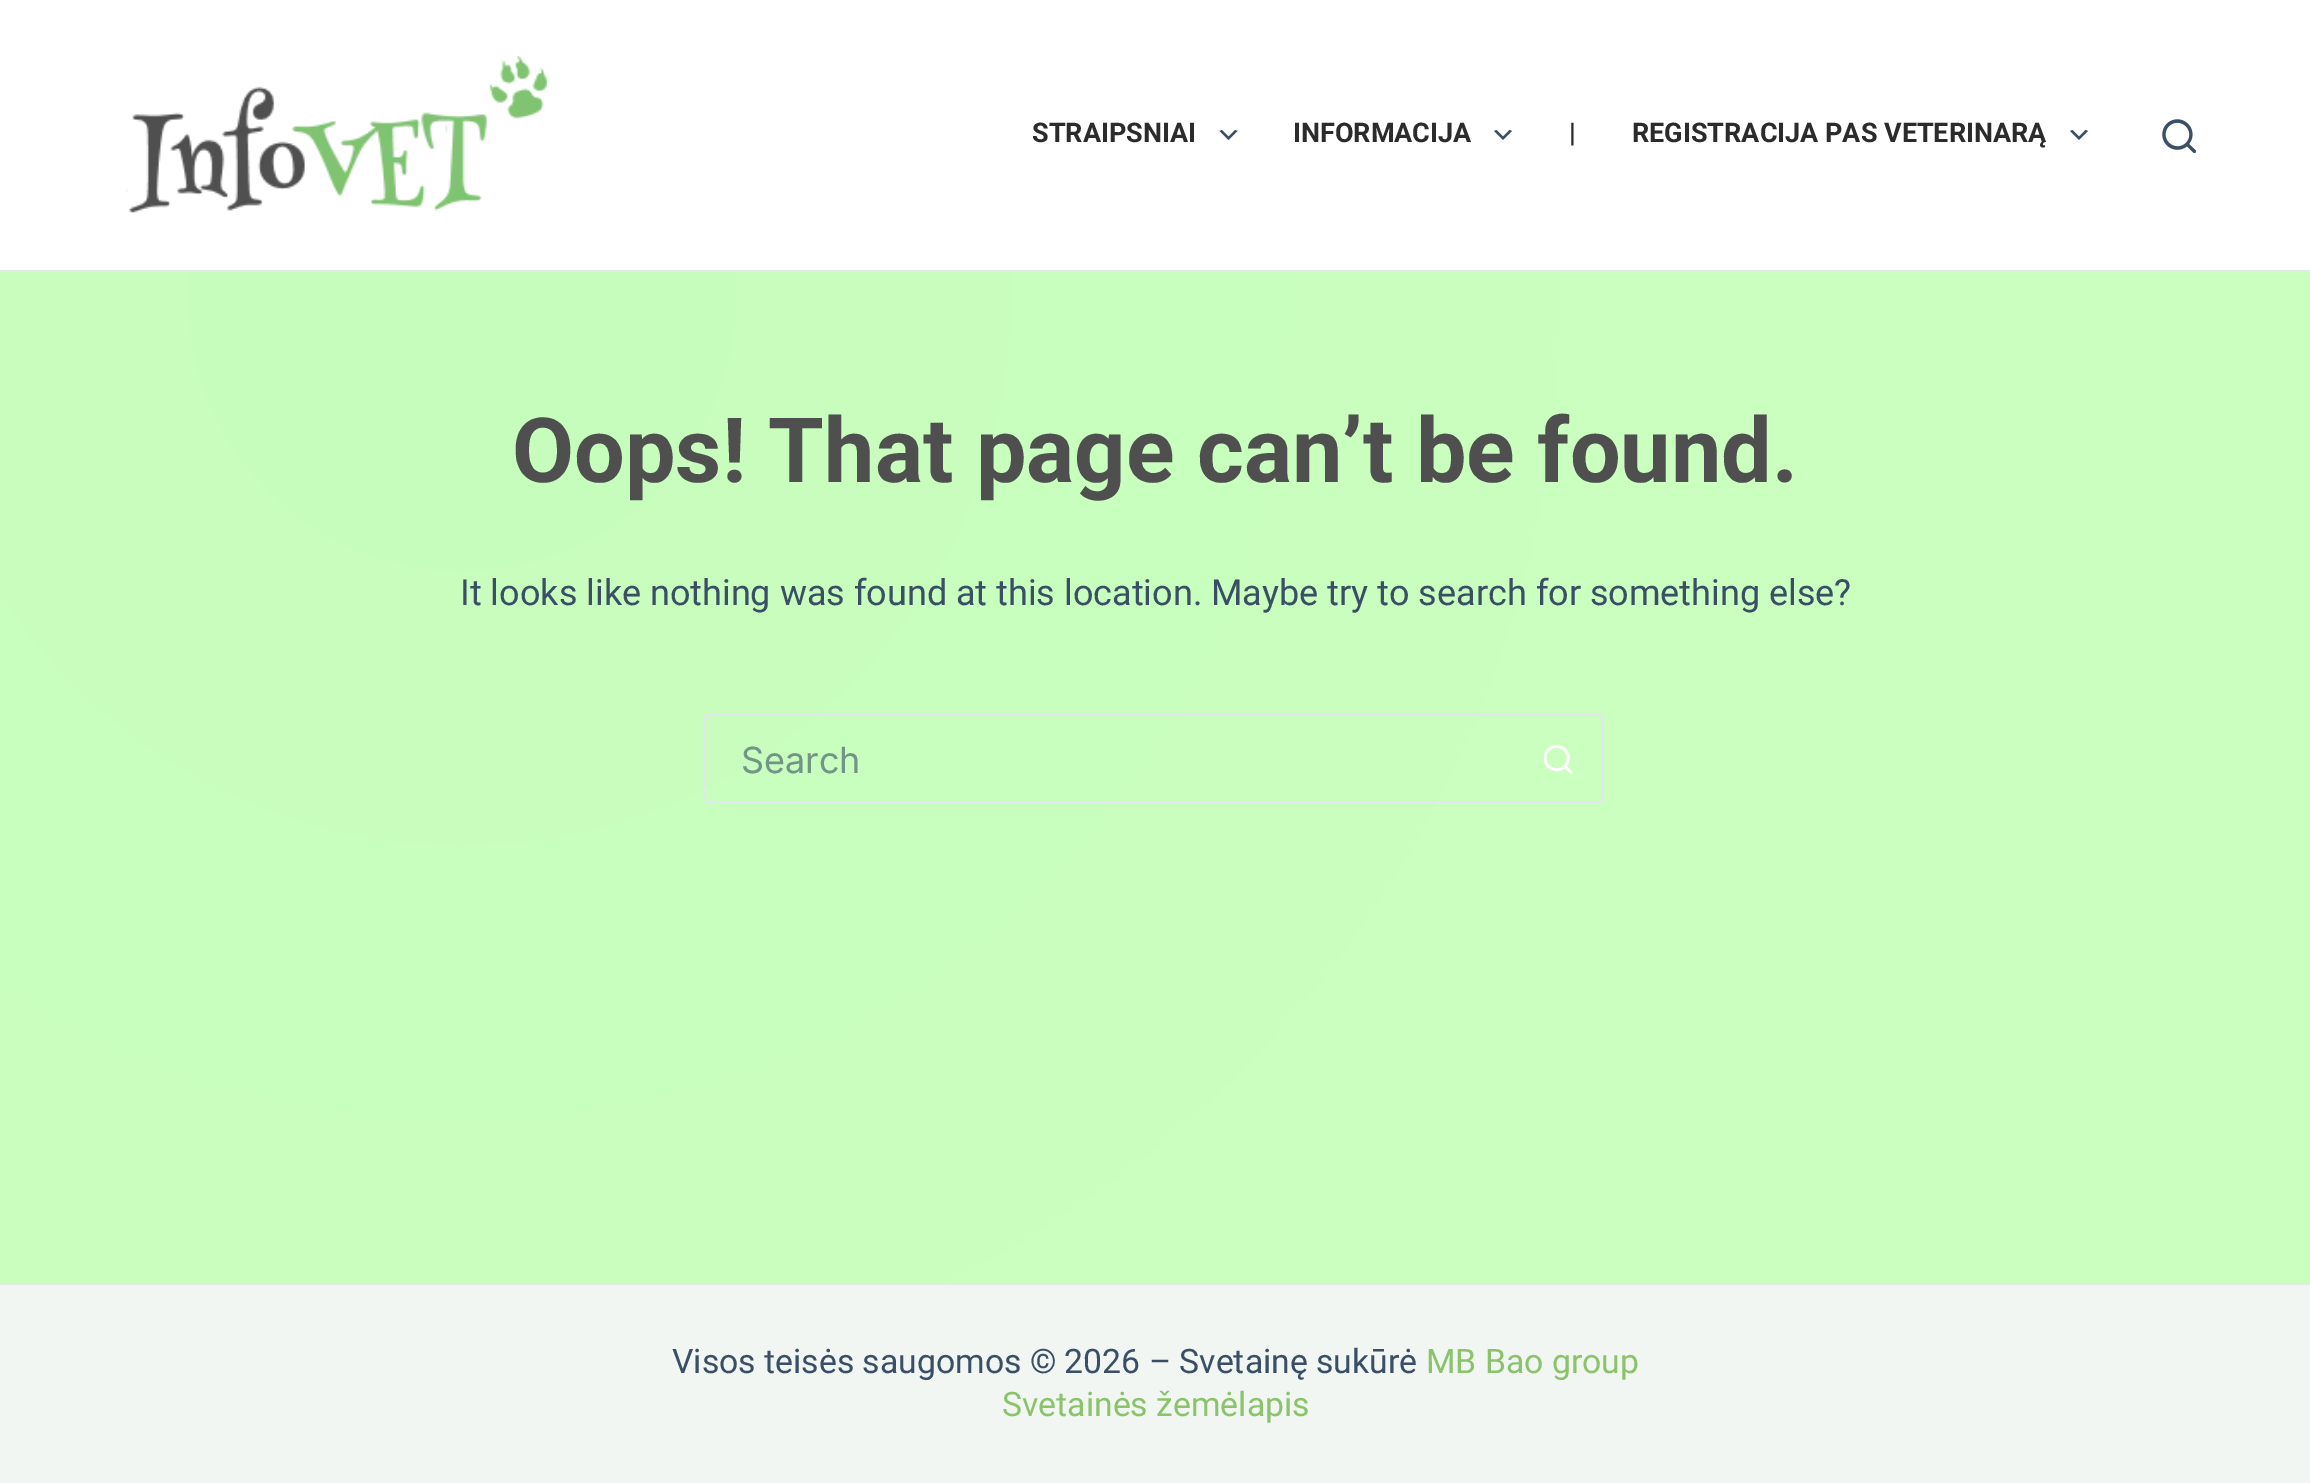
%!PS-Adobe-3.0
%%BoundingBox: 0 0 2310 1483
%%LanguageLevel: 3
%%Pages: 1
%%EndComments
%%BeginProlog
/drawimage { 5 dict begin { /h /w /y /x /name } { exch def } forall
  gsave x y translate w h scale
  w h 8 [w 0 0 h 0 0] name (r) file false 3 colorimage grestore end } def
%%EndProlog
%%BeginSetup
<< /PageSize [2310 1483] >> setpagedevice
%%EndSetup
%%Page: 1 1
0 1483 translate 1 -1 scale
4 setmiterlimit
1 setgray
0 0 2310 1483 rectfill
gsave newpath 0 272 moveto 2310 272 lineto 2310 1283 lineto 0 1283 lineto closepath clip newpath 462 297 translate 2197 2197 scale
<< /ShadingType 3 /ColorSpace /DeviceRGB /Coords [0 0 0 0 0 1] /Extend [true true] /Function << /FunctionType 3 /Domain [0 1] /Functions [<< /FunctionType 2 /Domain [0 1] /C0 [0.78 0.992 0.737] /C1 [0.792 1 0.753] /N 1 >> << /FunctionType 2 /Domain [0 1] /C0 [0.792 1 0.753] /C1 [0.792 1 0.753] /N 1 >>] /Bounds [0.6] /Encode [0 1 0 1] >> >> shfill grestore
0.89 0.914 0.898 setrgbcolor
0 270 2310 2 rectfill
(images/1.raw) 126 56 421 157 drawimage
0.227 0.31 0.4 setrgbcolor
newpath 1222 130 moveto 1228.5 136.5 lineto 1235 130 lineto 1237.5 131 lineto 1228.5 140 lineto 1219.5 131 lineto closepath fill
newpath 1496.5 130 moveto 1503 136.5 lineto 1509.5 130 lineto 1512 131 lineto 1503 140 lineto 1494 131 lineto closepath fill
newpath 2072.5 130 moveto 2079 136.5 lineto 2085.5 130 lineto 2088 131 lineto 2079 140 lineto 2070 131 lineto closepath fill
(images/2.raw) 2162 119 34 34 drawimage
0.882 0.91 0.929 setrgbcolor
newpath 711 713 moveto 1514 713 lineto 1514 803 lineto 711 803 lineto 707 803 704 800 704 796 curveto 704 720 lineto 704 716 707 713 711 713 curveto closepath 711 716 moveto 1514 716 lineto 1514 801 lineto 711 801 lineto 709 801 706 799 706 796 curveto 706 720 lineto 706 718 709 716 711 716 curveto closepath eofill
newpath 1514 713 moveto 1598 713 lineto 1601 713 1604 716 1604 720 curveto 1604 796 lineto 1604 800 1601 803 1598 803 curveto 1514 803 lineto closepath 1514 716 moveto 1598 716 lineto 1600 716 1602 718 1602 720 curveto 1602 796 lineto 1602 799 1600 801 1598 801 curveto 1514 801 lineto closepath eofill
(images/3.raw) 1544 745 29 29 drawimage
0.945 0.965 0.953 setrgbcolor
0 1285 2310 198 rectfill
0.89 0.914 0.898 setrgbcolor
0 1283 2310 2 rectfill
/Roboto-Bold [27 0 0 -27 0 0] selectfont
0.169 setgray
1032 142 moveto (STRAIPSNIAI) show
1293 142 moveto (INFORMACIJA) show
1569 142 moveto (|) show
1632 142 moveto (REGISTRACIJA PAS VETERINARĄ) show
/Roboto-Bold [90 0 0 -90 0 0] selectfont
0.31 setgray
512 482 moveto (Oops! That page can’t be found.) show
/Roboto-Regular [36 0 0 -36 0 0] selectfont
0.227 0.31 0.4 setrgbcolor
460 605 moveto (It looks like nothing was found at this location. Maybe try to search for something else?) show
/Inter-Regular [36 0 0 -36 0 0] selectfont
0.451 0.584 0.537 setrgbcolor
741 773 moveto (Search) show
/Roboto-Regular [33.75 0 0 -33.75 0 0] selectfont
0.227 0.31 0.4 setrgbcolor
672 1373 moveto (Visos teisės saugomos © 2026 – Svetainę sukūrė) show
0.545 0.765 0.416 setrgbcolor
1426 1373 moveto (MB Bao group) show
1002 1416 moveto (Svetainės žemėlapis) show
showpage
%%EOF
